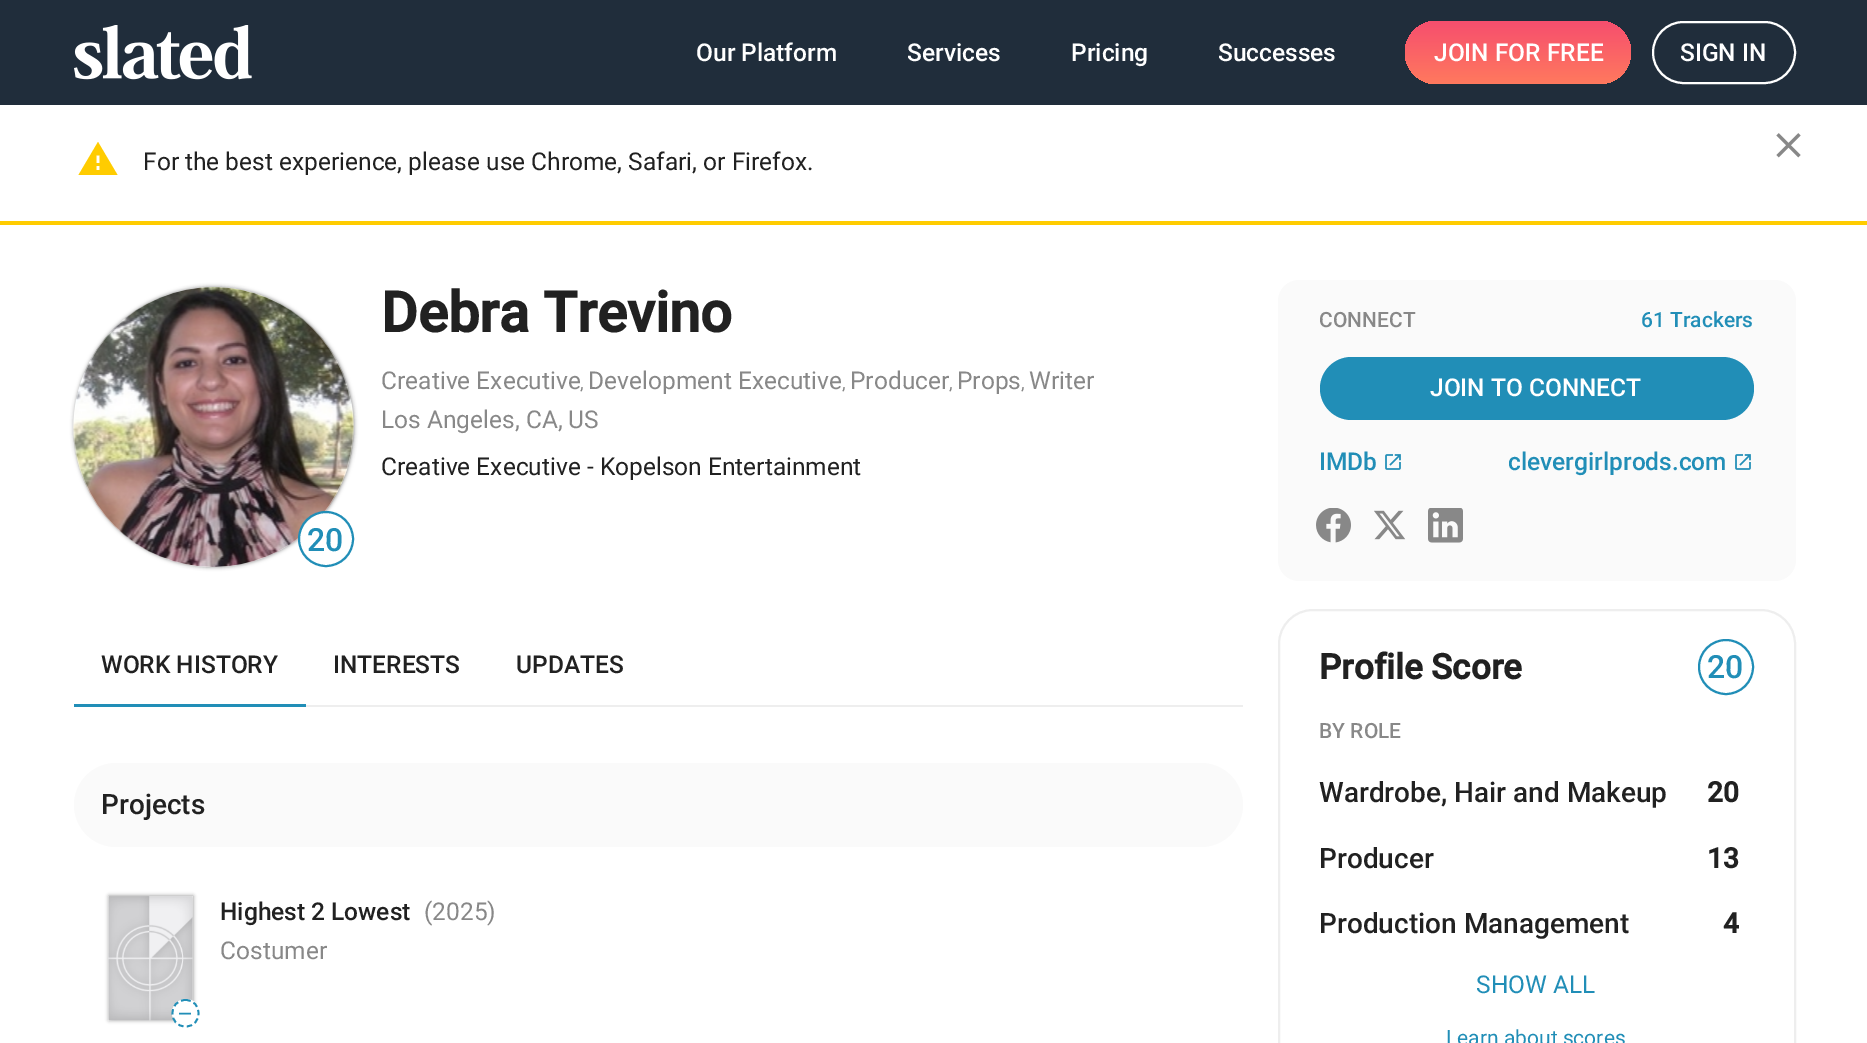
%!PS-Adobe-3.0
%%BoundingBox: 0 0 1867 1043
%%LanguageLevel: 3
%%Pages: 1
%%EndComments
%%BeginProlog
/setalpha { dup .setfillconstantalpha .setstrokeconstantalpha } def
/rrect { 5 dict begin { /r /h /w /y /x } { exch def } forall
  x r add y moveto x w add y 2 copy h add r arct x w add y h add x 1 index r arct
  x y h add x y r arct x y 2 copy exch w add exch r arct closepath end } def
/softshadow { 12 dict begin { /a /b /q /h /w /y /x } { exch def } forall gsave /was 0 def
  9 -2 -9 { dup b mul 4 div /e exch def 1 sub .425 mul 2.718 exch exp 1 add a .99 .min exch div /now exch def
    1 1 now sub 1 was sub div sub setalpha /was now def
    w h .min e 2 mul add 0 gt { x e sub y e sub w e 2 mul add h e 2 mul add
      q e add b .6 mul add w h .min 2 div e add .min 0 .max rrect fill } if } for grestore end } def
/drawimage { 5 dict begin { /h /w /y /x /name } { exch def } forall
  gsave x y translate w h scale
  w h 8 [w 0 0 h 0 0] name (r) file false 3 colorimage grestore end } def
%%EndProlog
%%BeginSetup
<< /PageSize [1867 1043] /PageUsesTransparency true >> setpagedevice
%%EndSetup
%%Page: 1 1
0 .pushpdf14devicefilter
0 1043 translate 1 -1 scale
4 setmiterlimit
1 setgray
0 0 1867 1043 rectfill
0.125 0.176 0.231 setrgbcolor
0 0 1867 105 rectfill
(images/1.raw) 74 25 178 55 drawimage
gsave 1405 21 226 63 31.5 rrect clip newpath
<< /ShadingType 2 /ColorSpace /DeviceRGB /Coords [1518 21 1518 84] /Extend [true true] /Function << /FunctionType 2 /Domain [0 1] /C0 [0.965 0.306 0.431] /C1 [1 0.475 0.369] /N 1 >> >> shfill grestore
1 setgray
2 setlinewidth
1653 22 142 61 30.5 rrect stroke
1 0.8 0 setrgbcolor
0 221 1867 4 rectfill
(images/2.raw) 1776 133 25 25 drawimage
newpath 99.5 163 moveto 99.5 155.5 lineto 96.5 155.5 lineto 96.5 163 lineto closepath 99.5 170 moveto 99.5 166 lineto 96.5 166 lineto 96.5 170 lineto closepath 78.5 175 moveto 98 142 lineto 117.5 175 lineto closepath fill
0.533 setgray
74 287 280 280 140 2 1 softshadow
(images/3.raw) 73 287 281 280 drawimage
1 setgray
newpath 326 539 27 0 360 arc closepath gsave fill grestore
0.129 0.557 0.718 setrgbcolor
stroke
74 704 232 3 rectfill
0.933 setgray
306 705 937 2 rectfill
0.98 setgray
74 763 1169 84 42 rrect fill
0.533 setgray
109 896 84 124 0 2 1 softshadow
(images/4.raw) 108 896 85 125 drawimage
1 setgray
newpath 186 1013 14 0 360 arc closepath fill
0.129 0.557 0.718 setrgbcolor
1.8 setlinewidth
[5.25 3.5] 0 setdash
newpath 185.5 1000 moveto 203 1000 203 1026.5 185.5 1026.5 curveto 168 1026.5 168 1000 185.5 1000 curveto closepath stroke
0.98 setgray
1278 280 518 301 21 rrect fill
0.129 0.557 0.718 setrgbcolor
1320 357 434 63 31.5 rrect fill
(images/5.raw) 1385 454 16 16 drawimage
(images/5.raw) 1735 454 16 16 drawimage
(images/6.raw) 1316 508 35 35 drawimage
(images/7.raw) 1374 510 32 30 drawimage
(images/8.raw) 1428 508 35 35 drawimage
0.933 setgray
2 setlinewidth
[] 0 setdash
1279 610 516 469 34 rrect stroke
0.129 0.557 0.718 setrgbcolor
newpath 1726 667 27 0 360 arc closepath stroke
/Roboto-Medium [24.5 0 0 -24.5 0 0] selectfont
1 setgray
696 61 moveto (Our Platform) show
907 61 moveto (Services) show
1071 61 moveto (Pricing) show
1218 61 moveto (Successes) show
1434 61 moveto (JOIN FOR FREE) show
1680 61 moveto (SIGN IN) show
/Roboto-Regular [24.5 0 0 -24.5 0 0] selectfont
0.129 setgray
143 170 moveto (For the best experience, please use Chrome, Safari, or Firefox.) show
/Roboto-Bold [56 0 0 -56 0 0] selectfont
381 332 moveto (Debra Trevino) show
/Roboto-Regular [24.5 0 0 -24.5 0 0] selectfont
0.533 setgray
381 389 moveto (Creative Executive) show
/Roboto-Regular [18 0 0 -18 0 0] selectfont
580 389 moveto (,) show
/Roboto-Regular [24.5 0 0 -24.5 0 0] selectfont
588 389 moveto (Development Executive) show
/Roboto-Regular [18 0 0 -18 0 0] selectfont
842 389 moveto (,) show
/Roboto-Regular [24.5 0 0 -24.5 0 0] selectfont
850 389 moveto (Producer) show
/Roboto-Regular [18 0 0 -18 0 0] selectfont
949 389 moveto (,) show
/Roboto-Regular [24.5 0 0 -24.5 0 0] selectfont
957 389 moveto (Props) show
/Roboto-Regular [18 0 0 -18 0 0] selectfont
1021 389 moveto (,) show
/Roboto-Regular [24.5 0 0 -24.5 0 0] selectfont
1029 389 moveto (Writer) show
381 428 moveto (Los Angeles, CA, US) show
0.129 setgray
381 475 moveto (Creative Executive - Kopelson Entertainment) show
/Roboto-Medium [32 0 0 -32 0 0] selectfont
0.129 0.557 0.718 setrgbcolor
307 551 moveto (20) show
/Roboto-Medium [24.5 0 0 -24.5 0 0] selectfont
0.129 setgray
101 673 moveto (WORK HISTORY) show
333 673 moveto (INTERESTS) show
516 673 moveto (UPDATES) show
/Roboto-Medium [28 0 0 -28 0 0] selectfont
101 814 moveto (Projects) show
/Roboto-Medium [24.5 0 0 -24.5 0 0] selectfont
220 920 moveto (Highest 2 Lowest) show
/Roboto-Regular [24.5 0 0 -24.5 0 0] selectfont
0.533 setgray
424 920 moveto (\(2025\)) show
220 959 moveto (Costumer) show
/Roboto-Medium [18 0 0 -18 0 0] selectfont
0.129 0.557 0.718 setrgbcolor
178 1020 moveto (—) show
/Roboto-Medium [21 0 0 -21 0 0] selectfont
0.533 setgray
1319 327 moveto (CONNECT) show
0.129 0.557 0.718 setrgbcolor
1641 327 moveto (61 Trackers) show
/Roboto-Medium [24.5 0 0 -24.5 0 0] selectfont
1 setgray
1430 396 moveto (JOIN TO CONNECT) show
0.129 0.557 0.718 setrgbcolor
1319 470 moveto (IMDb) show
gsave
1509 448 218 28 rectclip
1508 470 moveto (clevergirlprods.com) show
grestore
/Roboto-Bold [35 0 0 -35 0 0] selectfont
0.129 setgray
1319 679 moveto (Profile Score) show
/Roboto-Medium [32 0 0 -32 0 0] selectfont
0.129 0.557 0.718 setrgbcolor
1707 678 moveto (20) show
/Roboto-Medium [21 0 0 -21 0 0] selectfont
0.533 setgray
1319 738 moveto (BY ROLE) show
/Roboto-Medium [28 0 0 -28 0 0] selectfont
0.129 setgray
1319 802 moveto (Wardrobe, Hair and Makeup) show
/Roboto-Bold [28 0 0 -28 0 0] selectfont
1707 802 moveto (20) show
/Roboto-Medium [28 0 0 -28 0 0] selectfont
1319 868 moveto (Producer) show
/Roboto-Bold [28 0 0 -28 0 0] selectfont
1707 868 moveto (13) show
/Roboto-Medium [28 0 0 -28 0 0] selectfont
1319 933 moveto (Production Management) show
/Roboto-Bold [28 0 0 -28 0 0] selectfont
1723 933 moveto (4) show
/Roboto-Regular [24.5 0 0 -24.5 0 0] selectfont
0.129 0.557 0.718 setrgbcolor
1476 993 moveto (SHOW ALL) show
/Roboto-Regular [21 0 0 -21 0 0] selectfont
1446 1045 moveto (Learn about scores) show
.poppdf14devicefilter showpage
%%EOF
